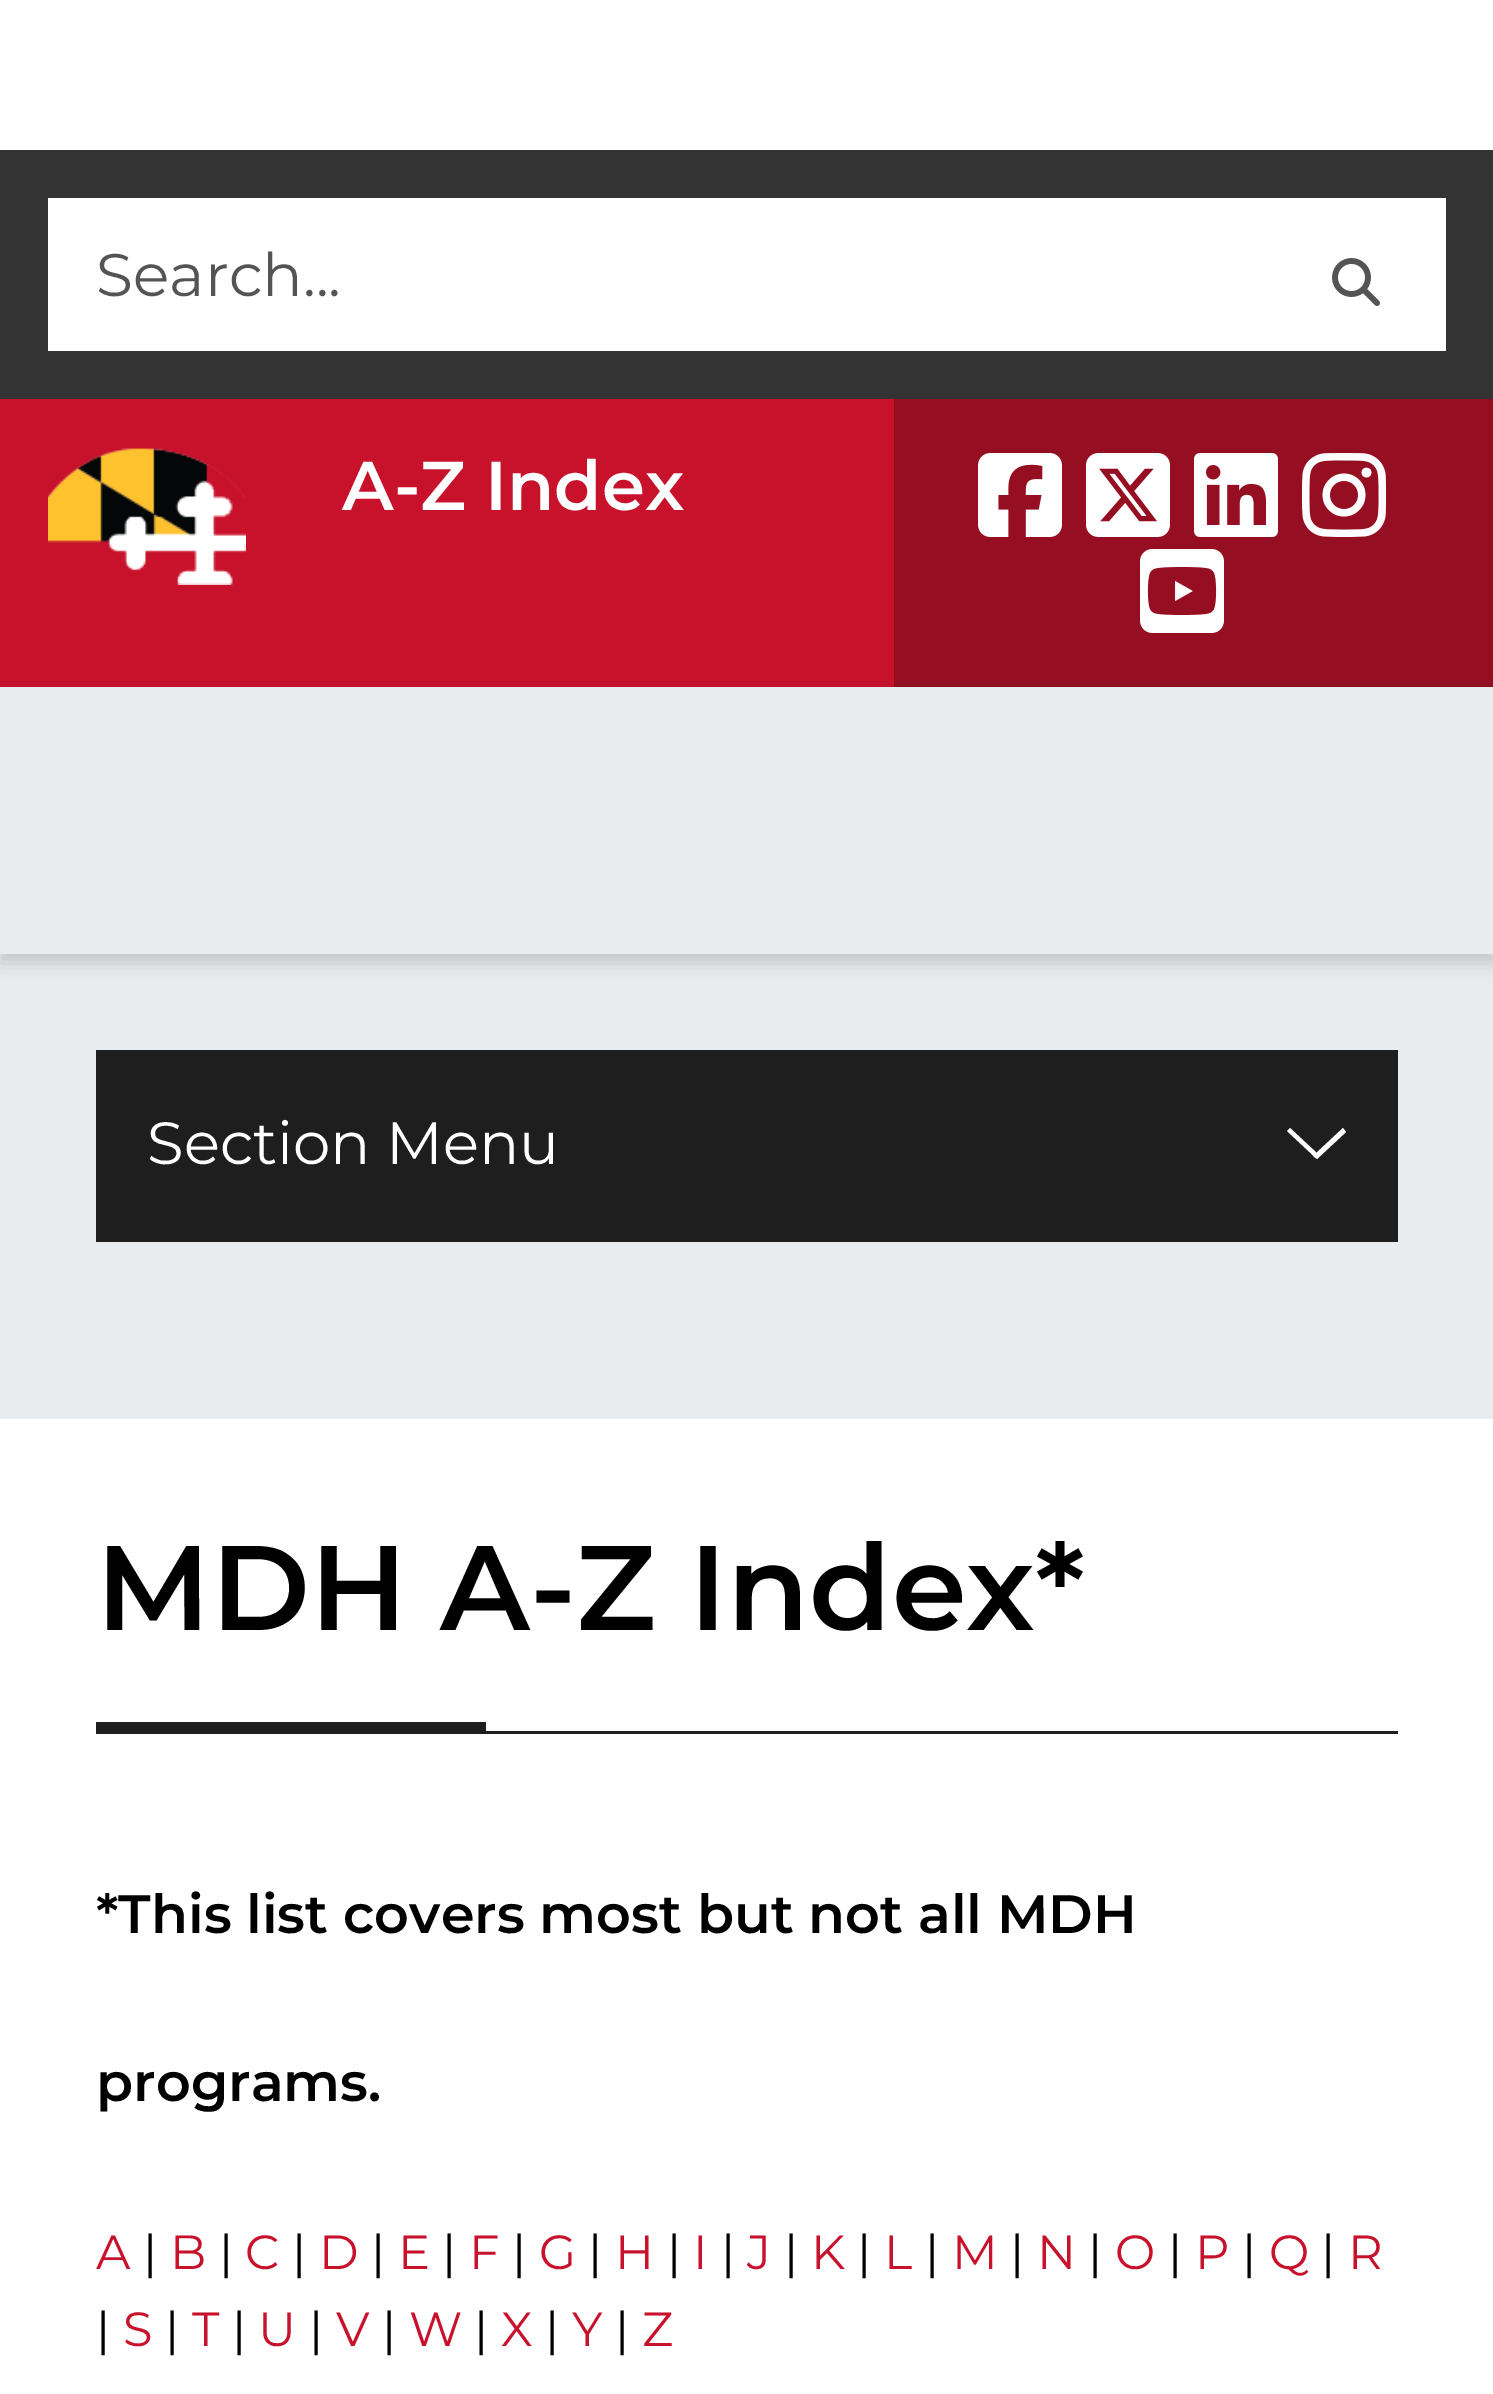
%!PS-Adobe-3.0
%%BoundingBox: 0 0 1493 2394
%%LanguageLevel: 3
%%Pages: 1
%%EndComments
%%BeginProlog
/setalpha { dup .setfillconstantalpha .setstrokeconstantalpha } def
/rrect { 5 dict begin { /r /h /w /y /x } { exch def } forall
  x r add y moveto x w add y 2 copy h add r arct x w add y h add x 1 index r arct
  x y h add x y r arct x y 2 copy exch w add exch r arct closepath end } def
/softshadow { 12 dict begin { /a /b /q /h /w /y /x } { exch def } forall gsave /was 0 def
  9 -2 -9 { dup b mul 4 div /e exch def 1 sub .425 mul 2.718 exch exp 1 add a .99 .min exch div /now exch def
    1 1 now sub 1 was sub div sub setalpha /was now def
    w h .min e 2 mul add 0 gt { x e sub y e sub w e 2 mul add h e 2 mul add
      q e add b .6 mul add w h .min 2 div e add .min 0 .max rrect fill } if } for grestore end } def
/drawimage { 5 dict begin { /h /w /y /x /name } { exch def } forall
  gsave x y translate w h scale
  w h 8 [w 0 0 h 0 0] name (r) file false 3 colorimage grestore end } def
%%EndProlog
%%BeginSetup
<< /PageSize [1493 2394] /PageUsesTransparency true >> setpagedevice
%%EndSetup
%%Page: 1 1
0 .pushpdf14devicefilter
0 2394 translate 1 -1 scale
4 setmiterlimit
1 setgray
0 0 1493 2394 rectfill
0.2 setgray
0 150 1493 249 rectfill
1 setgray
48 198 1398 153 rectfill
(images/1.raw) 1332 258 48 48 drawimage
0.784 0.071 0.173 setrgbcolor
0 399 894 288 rectfill
(images/2.raw) 48 448 198 137 drawimage
0.588 0.055 0.129 setrgbcolor
894 399 599 288 rectfill
(images/3.raw) 978 453 84 84 drawimage
(images/4.raw) 1086 453 84 84 drawimage
(images/5.raw) 1194 453 84 84 drawimage
(images/6.raw) 1302 453 84 84 drawimage
(images/7.raw) 1140 549 84 84 drawimage
0.914 0.925 0.937 setrgbcolor
0 954 1493 465 rectfill
0 setgray
0 696 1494 267 0 9 0.16 softshadow
0.914 0.925 0.937 setrgbcolor
0 687 1493 267 rectfill
0.118 setgray
96 1050 1302 192 rectfill
1 setgray
newpath 1317 1159 moveto 1320 1156 lineto 1290 1128 lineto 1287 1131 lineto closepath 1313 1156 moveto 1317 1159 lineto 1346 1132 lineto 1343 1128 lineto closepath fill
0.118 setgray
96 1731 1302 3 rectfill
96 1722 390 9 rectfill
/Montserrat-Thin [60 0 0 -60 0 0] selectfont
0.329 setgray
96 296 moveto (Search...) show
/Montserrat-SemiBold [69 0 0 -69 0 0] selectfont
1 setgray
342 510 moveto (A-Z Index) show
/Montserrat-Thin [59.5 0 0 -59.5 0 0] selectfont
147 1164 moveto (Section Menu) show
/Montserrat-SemiBold [120 0 0 -120 0 0] selectfont
0 setgray
96 1630 moveto (MDH A-Z Index*) show
/Montserrat-SemiBold [54 0 0 -54 0 0] selectfont
96 1933 moveto (*This list covers most but not all MDH) show
96 2101 moveto (programs.) show
/Montserrat-Thin [48 0 0 -48 0 0] selectfont
0.784 0.071 0.173 setrgbcolor
96 2269 moveto (A) show
0 setgray
143 2269 moveto (|) show
0.784 0.071 0.173 setrgbcolor
170 2269 moveto (B) show
0 setgray
219 2269 moveto (|) show
0.784 0.071 0.173 setrgbcolor
245 2269 moveto (C) show
0 setgray
292 2269 moveto (|) show
0.784 0.071 0.173 setrgbcolor
319 2269 moveto (D) show
0 setgray
371 2269 moveto (|) show
0.784 0.071 0.173 setrgbcolor
398 2269 moveto (E) show
0 setgray
442 2269 moveto (|) show
0.784 0.071 0.173 setrgbcolor
469 2269 moveto (F) show
0 setgray
512 2269 moveto (|) show
0.784 0.071 0.173 setrgbcolor
539 2269 moveto (G) show
0 setgray
588 2269 moveto (|) show
0.784 0.071 0.173 setrgbcolor
615 2269 moveto (H) show
0 setgray
667 2269 moveto (|) show
0.784 0.071 0.173 setrgbcolor
693 2269 moveto (I) show
0 setgray
721 2269 moveto (|) show
0.784 0.071 0.173 setrgbcolor
747 2269 moveto (J) show
0 setgray
784 2269 moveto (|) show
0.784 0.071 0.173 setrgbcolor
811 2269 moveto (K) show
0 setgray
857 2269 moveto (|) show
0.784 0.071 0.173 setrgbcolor
884 2269 moveto (L) show
0 setgray
925 2269 moveto (|) show
0.784 0.071 0.173 setrgbcolor
952 2269 moveto (M) show
0 setgray
1010 2269 moveto (|) show
0.784 0.071 0.173 setrgbcolor
1037 2269 moveto (N) show
0 setgray
1088 2269 moveto (|) show
0.784 0.071 0.173 setrgbcolor
1115 2269 moveto (O) show
0 setgray
1168 2269 moveto (|) show
0.784 0.071 0.173 setrgbcolor
1195 2269 moveto (P) show
0 setgray
1242 2269 moveto (|) show
0.784 0.071 0.173 setrgbcolor
1269 2269 moveto (Q) show
0 setgray
1321 2269 moveto (|) show
0.784 0.071 0.173 setrgbcolor
1348 2269 moveto (R) show
0 setgray
96 2346 moveto (|) show
0.784 0.071 0.173 setrgbcolor
123 2346 moveto (S) show
0 setgray
165 2346 moveto (|) show
0.784 0.071 0.173 setrgbcolor
192 2346 moveto (T) show
0 setgray
232 2346 moveto (|) show
0.784 0.071 0.173 setrgbcolor
258 2346 moveto (U) show
0 setgray
309 2346 moveto (|) show
0.784 0.071 0.173 setrgbcolor
336 2346 moveto (V) show
0 setgray
382 2346 moveto (|) show
0.784 0.071 0.173 setrgbcolor
409 2346 moveto (W) show
0 setgray
474 2346 moveto (|) show
0.784 0.071 0.173 setrgbcolor
501 2346 moveto (X) show
0 setgray
545 2346 moveto (|) show
0.784 0.071 0.173 setrgbcolor
572 2346 moveto (Y) show
0 setgray
615 2346 moveto (|) show
0.784 0.071 0.173 setrgbcolor
642 2346 moveto (Z) show
.poppdf14devicefilter showpage
%%EOF
